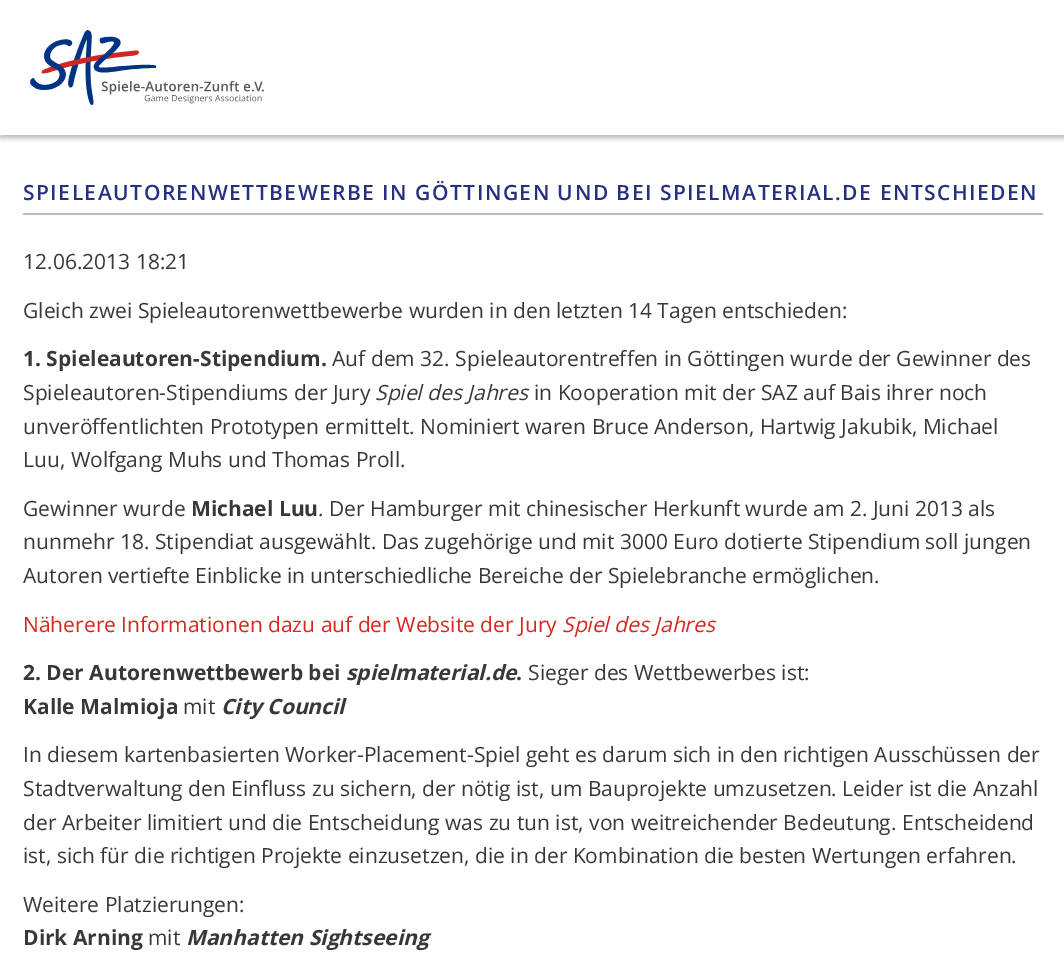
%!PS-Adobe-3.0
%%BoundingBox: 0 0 1064 956
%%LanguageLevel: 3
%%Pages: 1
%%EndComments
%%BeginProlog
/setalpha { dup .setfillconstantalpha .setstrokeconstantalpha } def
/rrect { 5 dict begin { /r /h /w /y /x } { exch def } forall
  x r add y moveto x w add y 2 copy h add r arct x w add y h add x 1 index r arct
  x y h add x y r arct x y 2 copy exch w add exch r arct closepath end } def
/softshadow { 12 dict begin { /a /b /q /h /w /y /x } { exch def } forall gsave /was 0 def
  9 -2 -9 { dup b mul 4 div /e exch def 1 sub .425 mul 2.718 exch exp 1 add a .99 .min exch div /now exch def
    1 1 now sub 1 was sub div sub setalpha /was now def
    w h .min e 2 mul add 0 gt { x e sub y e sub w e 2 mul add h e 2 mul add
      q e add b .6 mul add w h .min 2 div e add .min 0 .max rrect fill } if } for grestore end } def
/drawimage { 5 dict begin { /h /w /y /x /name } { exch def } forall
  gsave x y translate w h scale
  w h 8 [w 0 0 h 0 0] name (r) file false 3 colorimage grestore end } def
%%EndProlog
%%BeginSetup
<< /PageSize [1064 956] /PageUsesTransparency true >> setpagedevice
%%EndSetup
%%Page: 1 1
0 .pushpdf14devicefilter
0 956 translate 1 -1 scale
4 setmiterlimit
1 setgray
0 0 1064 956 rectfill
gsave
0 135 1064 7 rectclip
0 setgray
0 3 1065 135 0 3 0.3 softshadow
grestore
(images/1.raw) 30 30 234 75 drawimage
0.733 setgray
23 213 1020 2 rectfill
/OpenSans-SemiBold [21 0 0 -21 0 0] selectfont
0.145 0.188 0.506 setrgbcolor
23 200 moveto 1.5 0 (SPIELEAUTORENWETTBEWERBE IN GÖTTINGEN UND BEI SPIELMATERIAL.DE ENTSCHIEDEN) ashow
/OpenSans-Regular [21 0 0 -21 0 0] selectfont
0.22 0.22 0.227 setrgbcolor
23 269 moveto (12.06.2013 18:21) show
23 318 moveto (Gleich zwei Spieleautorenwettbewerbe wurden in den letzten 14 Tagen entschieden:) show
/OpenSans-Bold [21 0 0 -21 0 0] selectfont
23 366 moveto (1. Spieleautoren-Stipendium.) show
/OpenSans-Regular [21 0 0 -21 0 0] selectfont
332 366 moveto (Auf dem 32. Spieleautorentreffen in Göttingen wurde der Gewinner des) show
23 400 moveto (Spieleautoren-Stipendiums der Jury) show
/OpenSans-Italic [21 0 0 -21 0 0] selectfont
375 400 moveto (Spiel des Jahres) show
/OpenSans-Regular [21 0 0 -21 0 0] selectfont
534 400 moveto (in Kooperation mit der SAZ auf Bais ihrer noch) show
23 434 moveto (unveröffentlichten Prototypen ermittelt. Nominiert waren Bruce Anderson, Hartwig Jakubik, Michael) show
23 467 moveto (Luu, Wolfgang Muhs und Thomas Proll.) show
23 516 moveto (Gewinner wurde) show
/OpenSans-Bold [21 0 0 -21 0 0] selectfont
191 516 moveto (Michael Luu) show
/OpenSans-Regular [21 0 0 -21 0 0] selectfont
318 516 moveto (. Der Hamburger mit chinesischer Herkunft wurde am 2. Juni 2013 als) show
23 549 moveto (nunmehr 18. Stipendiat ausgewählt. Das zugehörige und mit 3000 Euro dotierte Stipendium soll jungen) show
23 583 moveto (Autoren vertiefte Einblicke in unterschiedliche Bereiche der Spielebranche ermöglichen.) show
0.839 0.153 0.122 setrgbcolor
23 632 moveto (Näherere Informationen dazu auf der Website der Jury) show
/OpenSans-Italic [21 0 0 -21 0 0] selectfont
562 632 moveto (Spiel des Jahres) show
/OpenSans-Bold [21 0 0 -21 0 0] selectfont
0.22 0.22 0.227 setrgbcolor
23 680 moveto (2. Der Autorenwettbewerb bei) show
/OpenSans-BoldItalic [21 0 0 -21 0 0] selectfont
346 680 moveto (spielmaterial.de) show
/OpenSans-Bold [21 0 0 -21 0 0] selectfont
516 680 moveto (.) show
/OpenSans-Regular [21 0 0 -21 0 0] selectfont
528 680 moveto (Sieger des Wettbewerbes ist:) show
/OpenSans-Bold [21 0 0 -21 0 0] selectfont
23 714 moveto (Kalle Malmioja) show
/OpenSans-Regular [21 0 0 -21 0 0] selectfont
183 714 moveto (mit) show
/OpenSans-BoldItalic [21 0 0 -21 0 0] selectfont
221 714 moveto (City Council) show
/OpenSans-Regular [21 0 0 -21 0 0] selectfont
23 762 moveto (In diesem kartenbasierten Worker-Placement-Spiel geht es darum sich in den richtigen Ausschüssen der) show
23 796 moveto (Stadtverwaltung den Einfluss zu sichern, der nötig ist, um Bauprojekte umzusetzen. Leider ist die Anzahl) show
23 830 moveto (der Arbeiter limitiert und die Entscheidung was zu tun ist, von weitreichender Bedeutung. Entscheidend) show
23 863 moveto (ist, sich für die richtigen Projekte einzusetzen, die in der Kombination die besten Wertungen erfahren.) show
23 912 moveto (Weitere Platzierungen:) show
/OpenSans-Bold [21 0 0 -21 0 0] selectfont
23 945 moveto (Dirk Arning) show
/OpenSans-Regular [21 0 0 -21 0 0] selectfont
148 945 moveto (mit) show
/OpenSans-BoldItalic [21 0 0 -21 0 0] selectfont
186 945 moveto (Manhatten Sightseeing) show
.poppdf14devicefilter showpage
%%EOF
